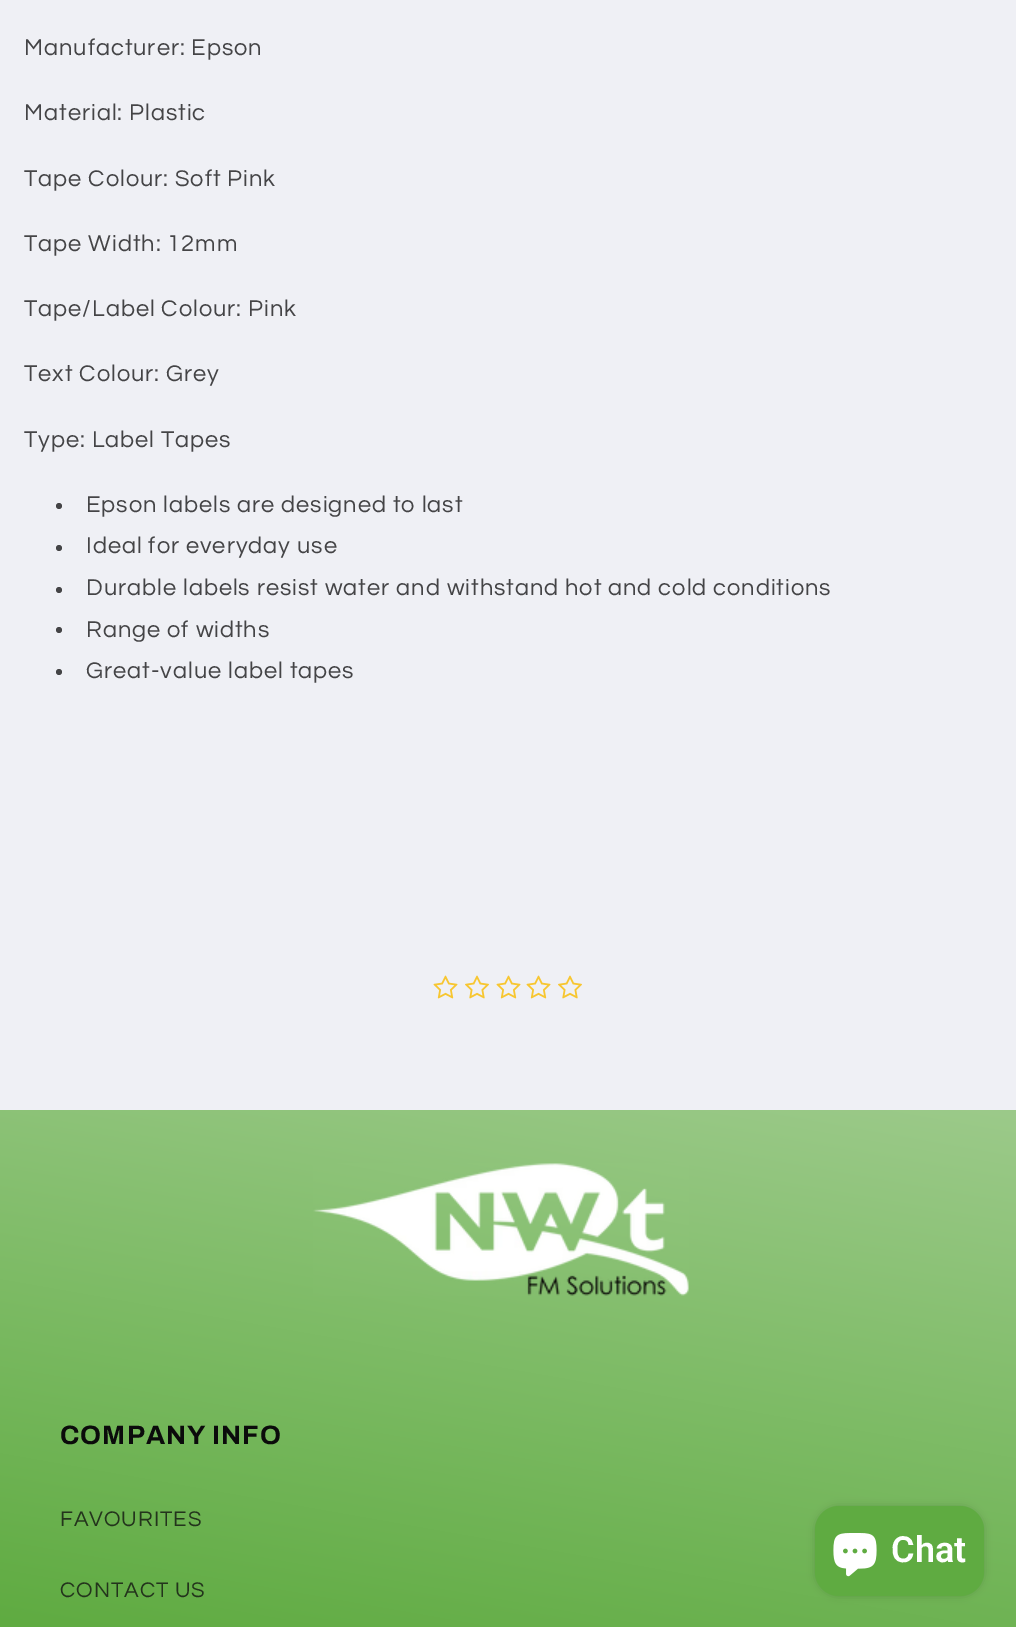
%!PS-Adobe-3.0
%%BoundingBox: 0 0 1016 1627
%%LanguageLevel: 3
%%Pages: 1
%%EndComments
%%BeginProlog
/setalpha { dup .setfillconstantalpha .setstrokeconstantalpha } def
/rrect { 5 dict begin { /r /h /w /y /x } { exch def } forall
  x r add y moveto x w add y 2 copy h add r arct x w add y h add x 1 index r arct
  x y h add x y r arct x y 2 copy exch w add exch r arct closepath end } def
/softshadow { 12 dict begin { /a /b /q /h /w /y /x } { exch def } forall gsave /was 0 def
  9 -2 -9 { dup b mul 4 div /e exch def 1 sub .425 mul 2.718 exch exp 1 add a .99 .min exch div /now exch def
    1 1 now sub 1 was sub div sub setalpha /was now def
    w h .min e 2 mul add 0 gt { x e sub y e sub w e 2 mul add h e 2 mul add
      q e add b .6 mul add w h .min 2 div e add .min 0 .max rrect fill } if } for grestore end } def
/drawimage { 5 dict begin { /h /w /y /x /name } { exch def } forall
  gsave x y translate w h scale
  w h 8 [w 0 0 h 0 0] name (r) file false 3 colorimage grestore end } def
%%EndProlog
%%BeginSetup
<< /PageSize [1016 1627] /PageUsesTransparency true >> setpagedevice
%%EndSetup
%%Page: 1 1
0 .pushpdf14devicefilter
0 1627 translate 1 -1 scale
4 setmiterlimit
0.937 0.941 0.961 setrgbcolor
0 0 1016 1627 rectfill
0.267 0.267 0.275 setrgbcolor
newpath 59 506 3 0 360 arc closepath fill
newpath 59 548 3 0 360 arc closepath fill
newpath 59 590 3 0 360 arc closepath fill
newpath 59 630 3 0 360 arc closepath fill
newpath 59 672 3 0 360 arc closepath fill
(images/1.raw) 433 975 25 24 drawimage
(images/2.raw) 465 975 24 24 drawimage
(images/1.raw) 496 975 25 24 drawimage
(images/1.raw) 526 975 25 24 drawimage
(images/2.raw) 558 975 24 24 drawimage
gsave newpath 0 1110 moveto 1016 1110 lineto 1016 1627 lineto 0 1627 lineto closepath clip newpath
<< /ShadingType 2 /ColorSpace /DeviceRGB /Coords [354 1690 663 -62] /Extend [true true] /Function << /FunctionType 2 /Domain [0 1] /C0 [0.373 0.671 0.255] /C1 [0.988 0.988 0.992] /N 1 >> >> shfill grestore
(images/3.raw) 313 1163 376 133 drawimage
0 setgray
815 1506 169 90 24 4 0.15 softshadow
0.373 0.671 0.255 setrgbcolor
815 1506 169 90 24 rrect fill
(images/4.raw) 833 1533 44 44 drawimage
/Questrial-Regular [23.6 0 0 -23.6 0 0] selectfont
0.267 0.267 0.275 setrgbcolor
24 55 moveto 0.95 0 (Manufacturer: Epson) ashow
24 120 moveto 0.95 0 (Material: Plastic) ashow
24 186 moveto 0.95 0 (Tape Colour: Soft Pink) ashow
24 251 moveto 0.95 0 (Tape Width: 12mm) ashow
24 316 moveto 0.95 0 (Tape/Label Colour: Pink) ashow
24 381 moveto 0.95 0 (Text Colour: Grey) ashow
24 447 moveto 0.95 0 (Type: Label Tapes) ashow
86 512 moveto 0.95 0 (Epson labels are designed to last) ashow
86 553 moveto 0.95 0 (Ideal for everyday use) ashow
86 595 moveto 0.95 0 (Durable labels resist water and withstand hot and cold conditions) ashow
86 637 moveto 0.95 0 (Range of widths) ashow
86 678 moveto 0.95 0 (Great-value label tapes) ashow
/Archivo-Bold [26.5 0 0 -26.5 0 0] selectfont
0.043 setgray
60 1444 moveto 1 0 (COMPANY INFO) ashow
/Questrial-Regular [22 0 0 -22 0 0] selectfont
0.137 0.204 0.11 setrgbcolor
60 1526 moveto 0.95 0 (FAVOURITES) ashow
60 1597 moveto 0.95 0 (CONTACT US) ashow
/Roboto-SemiBold [36 0 0 -36 0 0] selectfont
1 setgray
891 1562 moveto (Chat) show
.poppdf14devicefilter showpage
%%EOF
